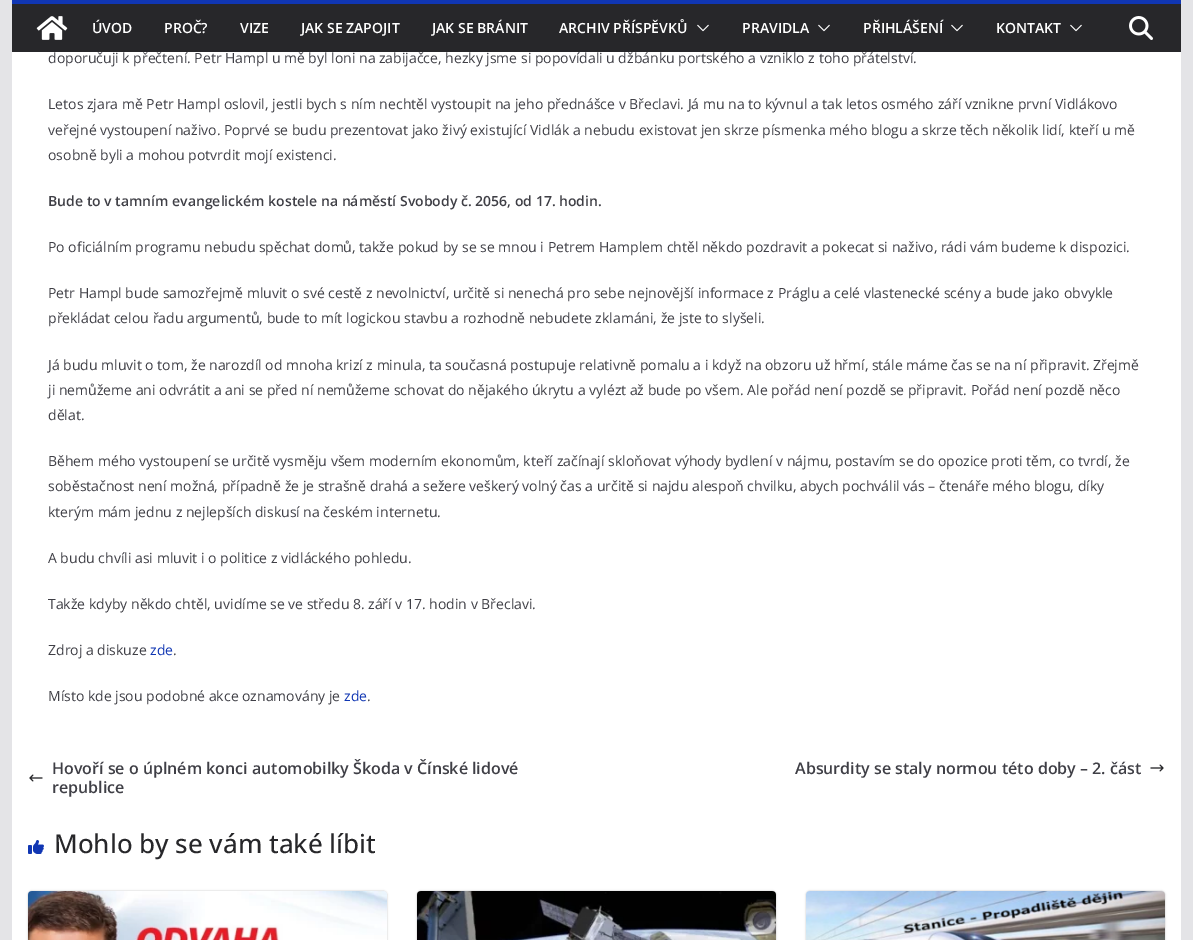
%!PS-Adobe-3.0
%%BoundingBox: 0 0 1193 940
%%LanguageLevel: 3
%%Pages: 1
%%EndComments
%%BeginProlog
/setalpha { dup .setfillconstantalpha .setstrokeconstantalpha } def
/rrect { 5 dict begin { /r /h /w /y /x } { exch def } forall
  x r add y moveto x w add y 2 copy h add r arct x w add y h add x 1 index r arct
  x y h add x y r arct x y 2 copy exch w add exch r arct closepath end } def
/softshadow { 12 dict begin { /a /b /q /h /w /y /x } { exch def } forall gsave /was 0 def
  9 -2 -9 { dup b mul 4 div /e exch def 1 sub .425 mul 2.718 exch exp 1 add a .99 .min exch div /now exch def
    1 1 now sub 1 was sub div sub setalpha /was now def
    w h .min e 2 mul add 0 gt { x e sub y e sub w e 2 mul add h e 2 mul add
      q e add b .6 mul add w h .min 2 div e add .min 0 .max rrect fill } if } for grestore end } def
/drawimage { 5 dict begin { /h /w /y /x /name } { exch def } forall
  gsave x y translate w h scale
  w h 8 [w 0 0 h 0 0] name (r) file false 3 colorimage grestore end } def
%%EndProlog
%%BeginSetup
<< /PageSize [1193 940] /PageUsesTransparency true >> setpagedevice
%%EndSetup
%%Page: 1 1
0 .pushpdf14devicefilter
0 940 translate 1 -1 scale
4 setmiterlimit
0.894 0.894 0.906 setrgbcolor
0 0 1193 940 rectfill
0.153 0.153 0.165 setrgbcolor
12 4 1169 48 rectfill
0.063 0.212 0.702 setrgbcolor
12 0 1169 4 rectfill
(images/1.raw) 36 16 32 24 drawimage
(images/2.raw) 697 24 12 8 drawimage
(images/2.raw) 818 24 12 8 drawimage
(images/2.raw) 951 24 12 8 drawimage
(images/2.raw) 1070 24 12 8 drawimage
(images/3.raw) 1129 16 24 24 drawimage
1 setgray
12 52 1169 888 rectfill
(images/4.raw) 29 774 14 8 drawimage
(images/5.raw) 1150 764 14 8 drawimage
(images/6.raw) 28 840 16 14 drawimage
0 setgray
28 891 359 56 4 1 0.24 softshadow
(images/7.raw) 28 891 359 49 drawimage
417 891 359 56 4 1 0.24 softshadow
(images/8.raw) 417 891 359 49 drawimage
806 891 359 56 4 1 0.24 softshadow
(images/9.raw) 806 891 359 49 drawimage
/OpenSans-SemiBold [14 0 0 -14 0 0] selectfont
1 setgray
92 33 moveto (ÚVOD) show
164 33 moveto (PROČ?) show
240 33 moveto (VIZE) show
301 33 moveto (JAK SE ZAPOJIT) show
432 33 moveto (JAK SE BRÁNIT) show
559 33 moveto (ARCHIV PŘÍSPĚVKŮ) show
742 33 moveto (PRAVIDLA) show
863 33 moveto (PŘIHLÁŠENÍ) show
996 33 moveto (KONTAKT) show
/OpenSans-Regular [14 0 0 -14 0 0] selectfont
0.247 0.247 0.275 setrgbcolor
48 63 moveto (doporučuji k přečtení. Petr Hampl u mě byl loni na zabijačce, hezky jsme si popovídali u džbánku portského a vzniklo z toho přátelství.) show
48 109 moveto (Letos zjara mě Petr Hampl oslovil, jestli bych s ním nechtěl vystoupit na jeho přednášce v Břeclavi. Já mu na to kývnul a tak letos osmého září vznikne první Vidlákovo) show
48 135 moveto (veřejné vystoupení naživo. Poprvé se budu prezentovat jako živý existující Vidlák a nebudu existovat jen skrze písmenka mého blogu a skrze těch několik lidí, kteří u mě) show
48 160 moveto (osobně byli a mohou potvrdit mojí existenci.) show
/OpenSans-SemiBold [14 0 0 -14 0 0] selectfont
48 206 moveto (Bude to v tamním evangelickém kostele na náměstí Svobody č. 2056, od 17. hodin.) show
/OpenSans-Regular [14 0 0 -14 0 0] selectfont
48 252 moveto (Po oficiálním programu nebudu spěchat domů, takže pokud by se se mnou i Petrem Hamplem chtěl někdo pozdravit a pokecat si naživo, rádi vám budeme k dispozici.) show
48 298 moveto (Petr Hampl bude samozřejmě mluvit o své cestě z nevolnictví, určitě si nenechá pro sebe nejnovější informace z Práglu a celé vlastenecké scény a bude jako obvykle) show
48 323 moveto (překládat celou řadu argumentů, bude to mít logickou stavbu a rozhodně nebudete zklamáni, že jste to slyšeli.) show
48 370 moveto (Já budu mluvit o tom, že narozdíl od mnoha krizí z minula, ta současná postupuje relativně pomalu a i když na obzoru už hřmí, stále máme čas se na ní připravit. Zřejmě) show
48 395 moveto (ji nemůžeme ani odvrátit a ani se před ní nemůžeme schovat do nějakého úkrytu a vylézt až bude po všem. Ale pořád není pozdě se připravit. Pořád není pozdě něco) show
48 420 moveto (dělat.) show
48 466 moveto (Během mého vystoupení se určitě vysměju všem moderním ekonomům, kteří začínají skloňovat výhody bydlení v nájmu, postavím se do opozice proti těm, co tvrdí, že) show
48 491 moveto (soběstačnost není možná, případně že je strašně drahá a sežere veškerý volný čas a určitě si najdu alespoň chvilku, abych pochválil vás – čtenáře mého blogu, díky) show
48 517 moveto (kterým mám jednu z nejlepších diskusí na českém internetu.) show
48 563 moveto (A budu chvíli asi mluvit i o politice z vidláckého pohledu.) show
48 609 moveto (Takže kdyby někdo chtěl, uvidíme se ve středu 8. září v 17. hodin v Břeclavi.) show
48 655 moveto (Zdroj a diskuze) show
0.063 0.212 0.702 setrgbcolor
150 655 moveto (zde) show
0.247 0.247 0.275 setrgbcolor
173 655 moveto (.) show
48 701 moveto (Místo kde jsou podobné akce oznamovány je) show
0.063 0.212 0.702 setrgbcolor
344 701 moveto (zde) show
0.247 0.247 0.275 setrgbcolor
367 701 moveto (.) show
/OpenSans-SemiBold [16 0 0 -16 0 0] selectfont
52 774 moveto (Hovoří se o úplném konci automobilky Škoda v Čínské lidové) show
52 793 moveto (republice) show
795 774 moveto (Absurdity se staly normou této doby – 2. část) show
/OpenSans-Medium [26 0 0 -26 0 0] selectfont
0.153 0.153 0.165 setrgbcolor
54 853 moveto (Mohlo by se vám také líbit) show
.poppdf14devicefilter showpage
%%EOF
